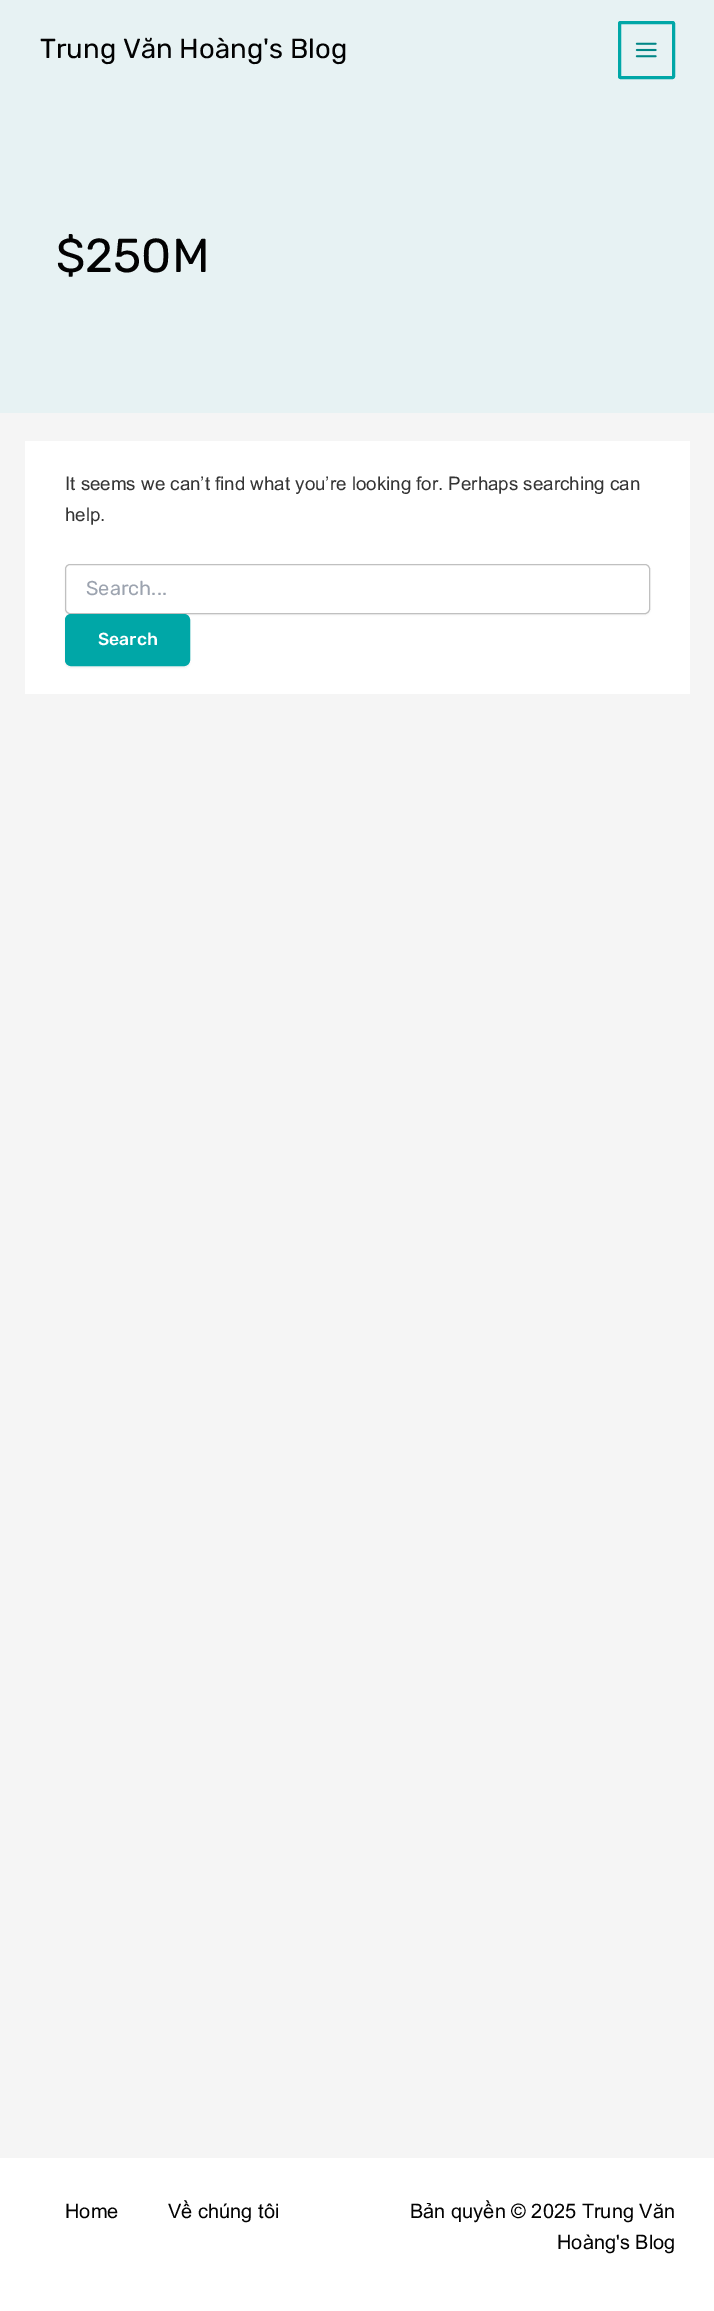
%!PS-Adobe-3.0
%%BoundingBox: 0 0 714 2311
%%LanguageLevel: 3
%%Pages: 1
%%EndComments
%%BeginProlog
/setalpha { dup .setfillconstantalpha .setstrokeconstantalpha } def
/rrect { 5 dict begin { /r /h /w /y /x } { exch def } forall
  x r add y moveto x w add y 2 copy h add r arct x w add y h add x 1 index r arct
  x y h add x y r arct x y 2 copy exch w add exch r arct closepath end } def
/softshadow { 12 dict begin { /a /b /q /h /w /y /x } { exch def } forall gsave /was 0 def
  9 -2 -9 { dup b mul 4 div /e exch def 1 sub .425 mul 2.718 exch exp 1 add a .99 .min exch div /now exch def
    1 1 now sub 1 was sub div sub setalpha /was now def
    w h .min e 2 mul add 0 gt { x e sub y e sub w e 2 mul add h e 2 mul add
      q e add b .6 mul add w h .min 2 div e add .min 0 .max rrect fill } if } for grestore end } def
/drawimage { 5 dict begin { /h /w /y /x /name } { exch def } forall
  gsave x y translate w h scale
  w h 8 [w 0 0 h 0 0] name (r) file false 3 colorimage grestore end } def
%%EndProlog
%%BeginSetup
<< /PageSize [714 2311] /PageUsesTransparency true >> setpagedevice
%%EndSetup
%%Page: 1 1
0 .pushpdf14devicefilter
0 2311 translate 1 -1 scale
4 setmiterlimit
0.961 setgray
0 0 714 2311 rectfill
0.906 0.949 0.953 setrgbcolor
0 0 714 413 rectfill
0 0.655 0.655 setrgbcolor
3 setlinewidth
619.5 22.5 54 55 1 rrect stroke
(images/1.raw) 635 42 22 16 drawimage
1 setgray
25 441 665 253 rectfill
0 setgray
65 565 585 50 5 1 0.05 softshadow
1 setgray
65.5 564.5 584 49 4.5 rrect gsave fill grestore
0.753 setgray
1 setlinewidth
stroke
0 setgray
65 615 125 53 6 1 0.05 softshadow
0 0.655 0.655 setrgbcolor
66.5 615.5 122 49 4.5 rrect gsave fill grestore
3 setlinewidth
stroke
1 setgray
0 2158 714 153 rectfill
/Rubik-Regular [27.5 0 0 -27.5 0 0] selectfont
0.008 setgray
40 58 moveto (Trung Văn Hoàng's Blog) show
/Rubik-Regular [47.5 0 0 -47.5 0 0] selectfont
56 272 moveto ($250M) show
/Arial-Regular [18.75 0 0 -18.75 0 0] selectfont
0.208 setgray
65 490 moveto (It seems we can’t find what you’re looking for. Perhaps searching can) show
65 521 moveto (help.) show
/Rubik-Regular [20 0 0 -20 0 0] selectfont
0.612 0.639 0.686 setrgbcolor
86 595 moveto (Search...) show
/Rubik-Medium [17.5 0 0 -17.5 0 0] selectfont
1 setgray
98 645 moveto (Search) show
/Arial-Regular [20 0 0 -20 0 0] selectfont
0.008 setgray
65 2218 moveto (Home) show
168 2218 moveto (Về chúng tôi) show
410 2218 moveto (Bản quyền © 2025 Trung Văn) show
557 2249 moveto (Hoàng's Blog) show
.poppdf14devicefilter showpage
%%EOF
